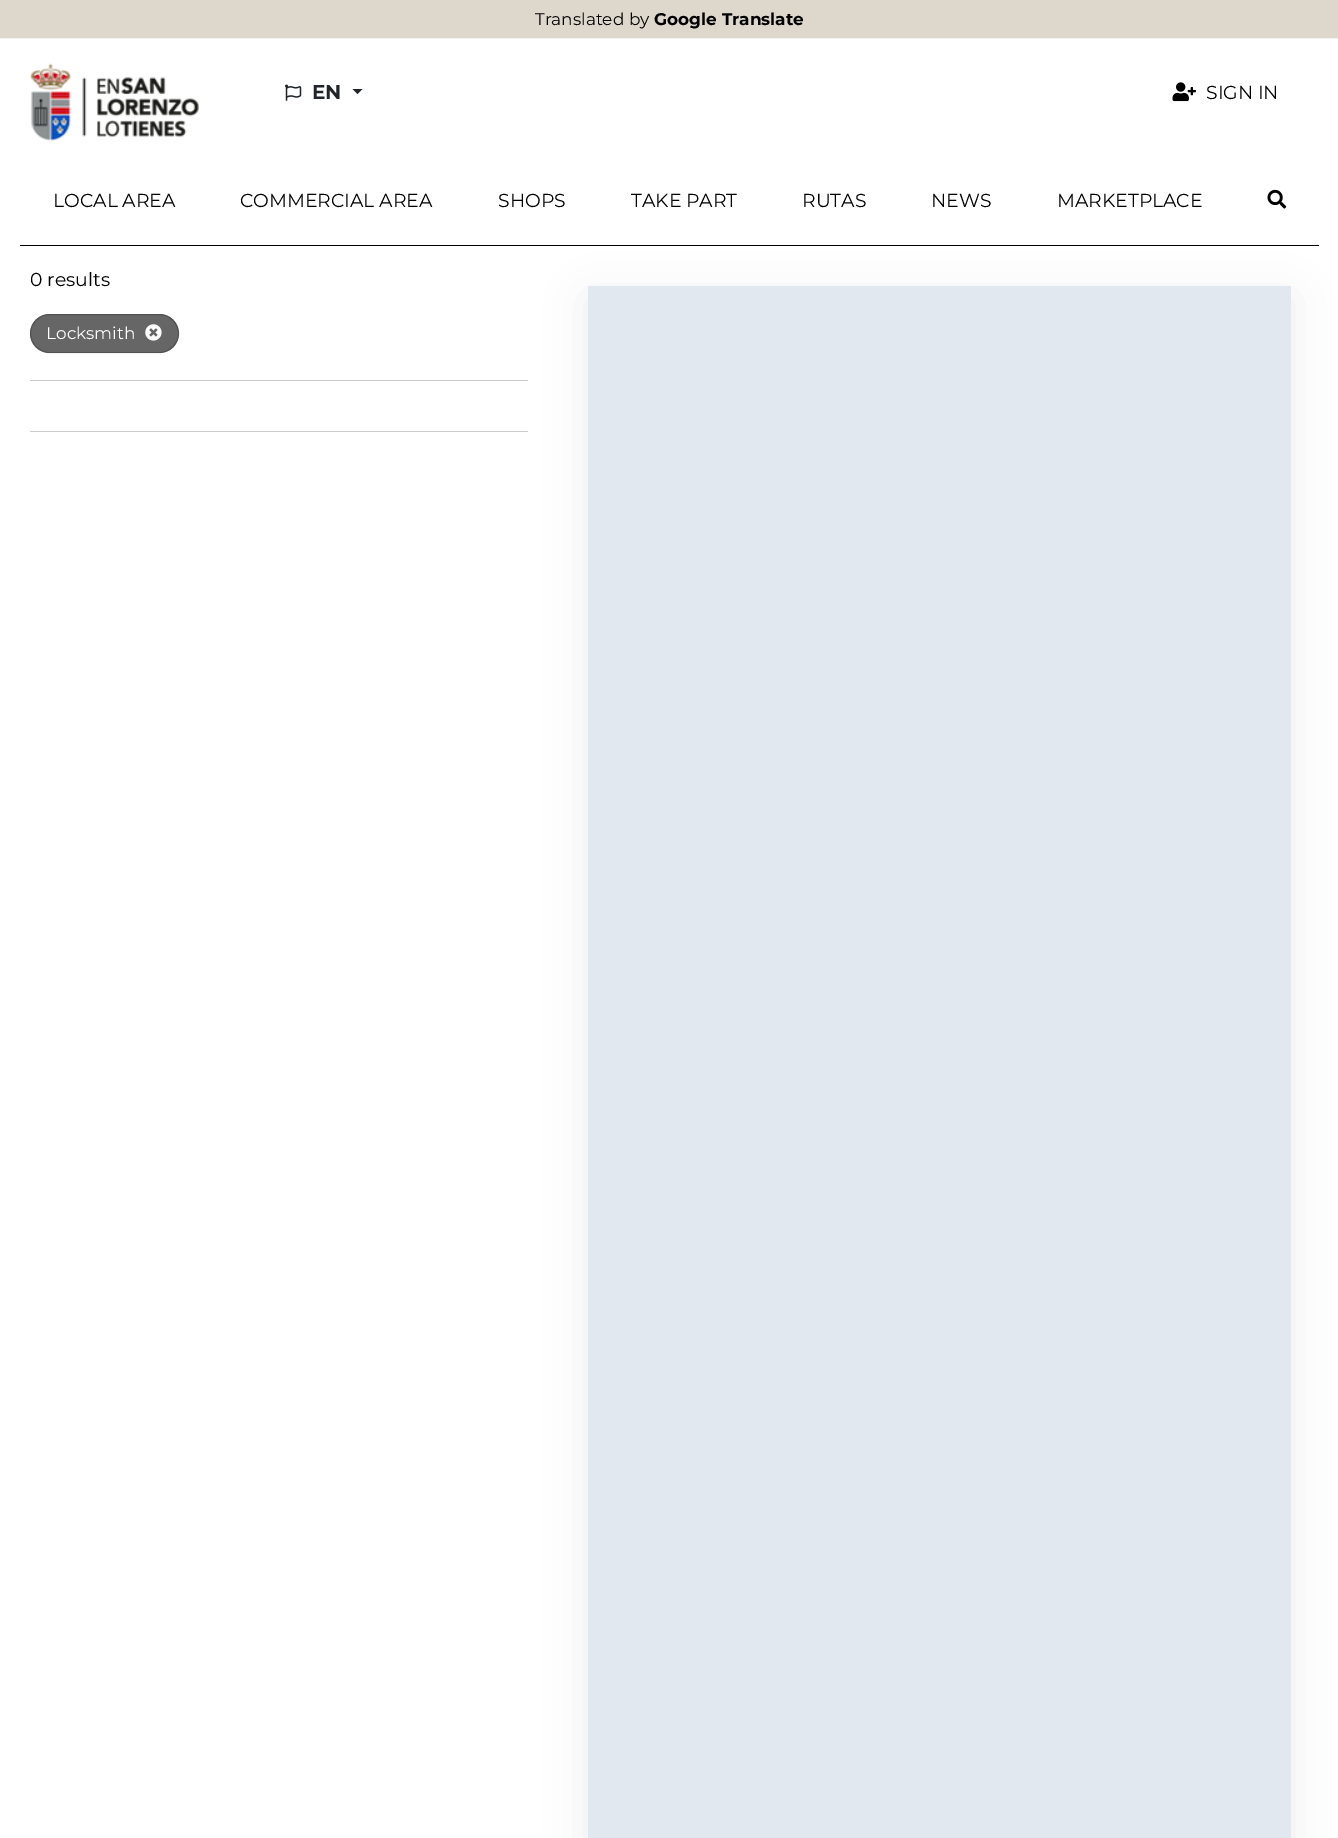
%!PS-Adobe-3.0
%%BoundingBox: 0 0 1338 1838
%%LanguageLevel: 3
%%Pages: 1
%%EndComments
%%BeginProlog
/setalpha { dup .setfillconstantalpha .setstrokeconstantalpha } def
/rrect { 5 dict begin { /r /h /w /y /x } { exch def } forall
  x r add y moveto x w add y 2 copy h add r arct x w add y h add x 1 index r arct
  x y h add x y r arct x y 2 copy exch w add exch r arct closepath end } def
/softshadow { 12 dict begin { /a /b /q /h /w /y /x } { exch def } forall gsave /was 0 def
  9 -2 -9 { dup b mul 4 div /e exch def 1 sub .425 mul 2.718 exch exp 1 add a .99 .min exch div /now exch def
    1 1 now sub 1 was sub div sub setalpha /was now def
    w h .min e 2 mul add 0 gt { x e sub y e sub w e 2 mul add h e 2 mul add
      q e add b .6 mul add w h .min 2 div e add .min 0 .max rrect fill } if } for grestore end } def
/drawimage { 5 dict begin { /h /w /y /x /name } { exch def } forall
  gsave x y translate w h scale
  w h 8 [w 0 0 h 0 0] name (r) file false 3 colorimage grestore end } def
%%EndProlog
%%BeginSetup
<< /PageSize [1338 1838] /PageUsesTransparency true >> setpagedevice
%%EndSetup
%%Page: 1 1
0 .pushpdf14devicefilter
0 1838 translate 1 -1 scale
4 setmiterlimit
1 setgray
0 0 1338 1838 rectfill
0.871 0.843 0.8 setrgbcolor
0 0 1338 38 rectfill
0.949 setgray
0 38 1338 1 rectfill
(images/1.raw) 30 63 169 79 drawimage
(images/2.raw) 285 84 17 17 drawimage
0.129 0.145 0.161 setrgbcolor
newpath 352.5 89 moveto 362.5 89 lineto 357.5 94 lineto closepath fill
(images/3.raw) 1172 82 24 20 drawimage
0 setgray
20 245 1299 1 rectfill
(images/4.raw) 1267 189 20 20 drawimage
588 298 703 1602 0 20.5 0.07 softshadow
0.8 setgray
30 431 498 1 rectfill
0.4 setgray
30 314 149 39 19.5 rrect fill
0.2 setalpha
0 setgray
30.5 314.5 148 38 19 rrect stroke
1 setalpha
(images/5.raw) 145 324 17 17 drawimage
0.8 setgray
30 380 498 1 rectfill
0.886 0.91 0.941 setrgbcolor
588 286 703 1552 rectfill
/Montserrat-Regular [16.9 0 0 -16.9 0 0] selectfont
0 setgray
535 25 moveto (Translated by) show
/Montserrat-Bold [16.9 0 0 -16.9 0 0] selectfont
654 25 moveto (Google Translate) show
/Montserrat-Bold [20 0 0 -20 0 0] selectfont
0.129 0.145 0.161 setrgbcolor
312 99 moveto (EN) show
/Montserrat-Regular [18.75 0 0 -18.75 0 0] selectfont
0 setgray
1206 99 moveto (SIGN IN) show
53 207 moveto (LOCAL AREA) show
240 207 moveto (COMMERCIAL AREA) show
498 207 moveto (SHOPS) show
631 207 moveto (TAKE PART) show
802 207 moveto (RUTAS) show
931 207 moveto (NEWS) show
1057 207 moveto (MARKETPLACE) show
30 286 moveto (0 results) show
/Montserrat-Regular [16.9 0 0 -16.9 0 0] selectfont
1 setgray
46 339 moveto (Locksmith) show
.poppdf14devicefilter showpage
%%EOF
